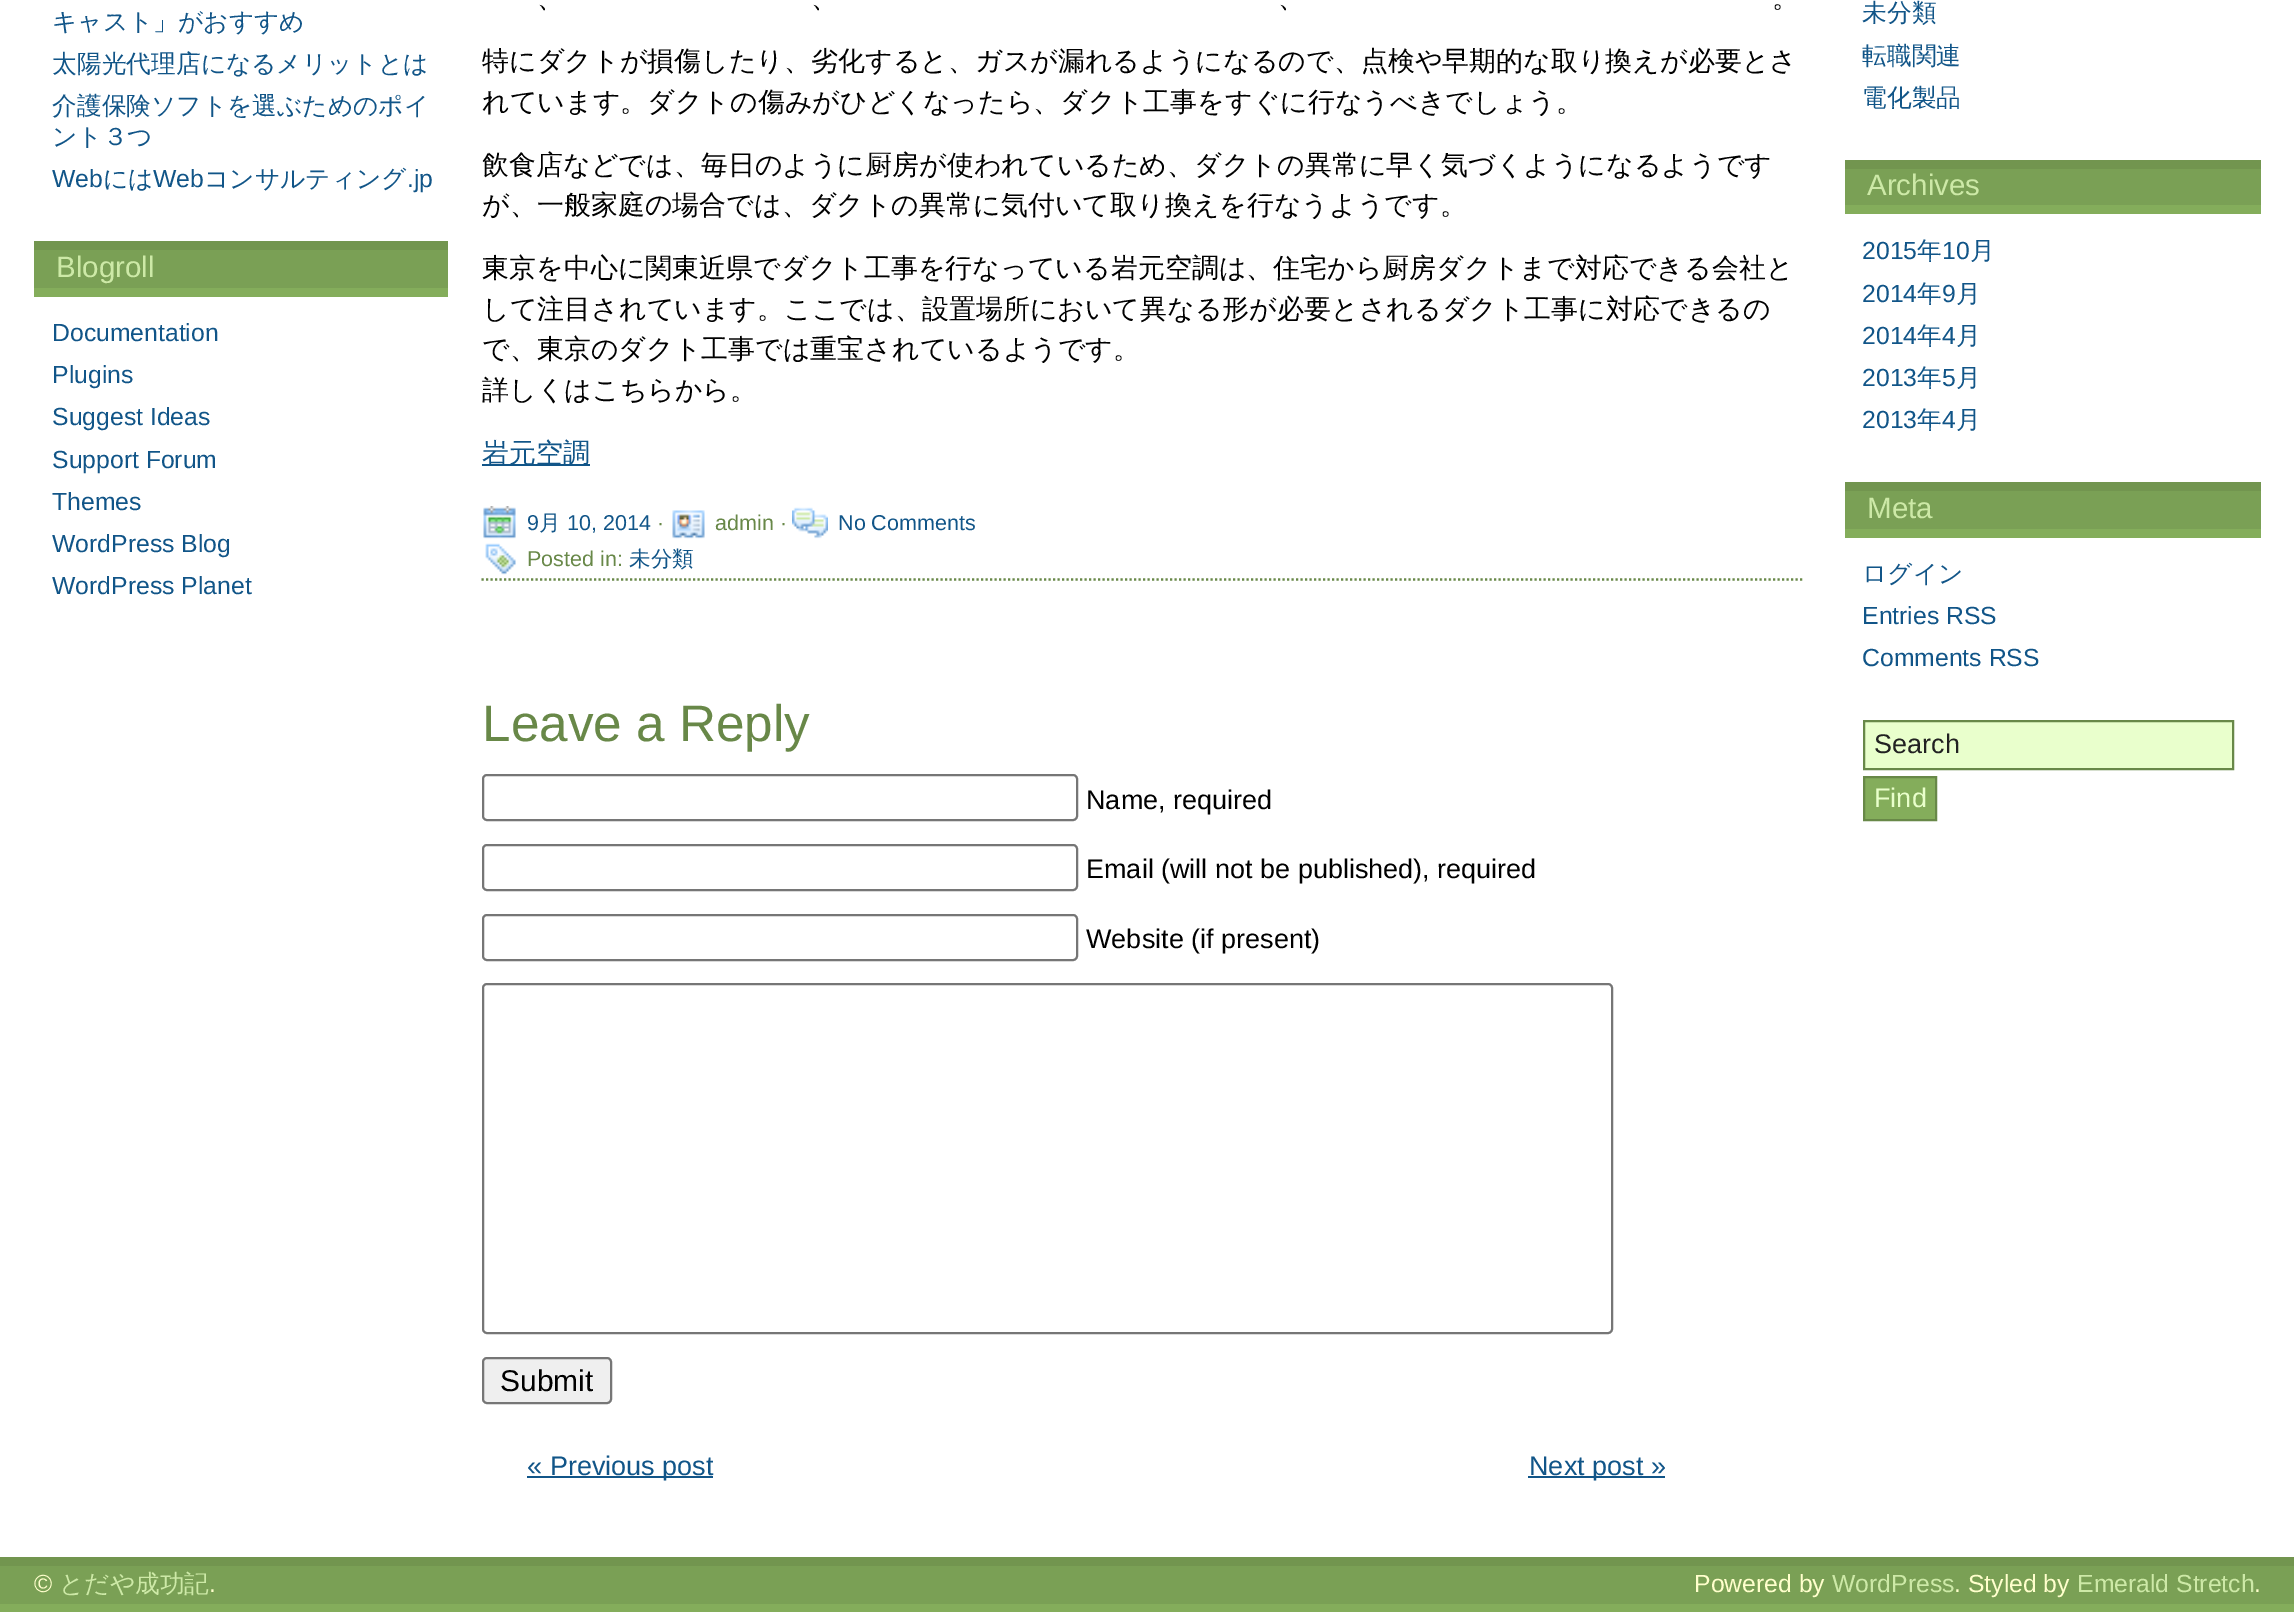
%!PS-Adobe-3.0
%%BoundingBox: 0 0 2294 1612
%%LanguageLevel: 3
%%Pages: 1
%%EndComments
%%BeginProlog
/rrect { 5 dict begin { /r /h /w /y /x } { exch def } forall
  x r add y moveto x w add y 2 copy h add r arct x w add y h add x 1 index r arct
  x y h add x y r arct x y 2 copy exch w add exch r arct closepath end } def
/drawimage { 5 dict begin { /h /w /y /x /name } { exch def } forall
  gsave x y translate w h scale
  w h 8 [w 0 0 h 0 0] name (r) file false 3 colorimage grestore end } def
%%EndProlog
%%BeginSetup
<< /PageSize [2294 1612] >> setpagedevice
%%EndSetup
%%Page: 1 1
0 1612 translate 1 -1 scale
4 setmiterlimit
1 setgray
0 0 2294 1612 rectfill
0.478 0.627 0.333 setrgbcolor
34 250 414 38 rectfill
0.447 0.584 0.31 setrgbcolor
34 241 414 9 rectfill
0.518 0.678 0.357 setrgbcolor
34 288 414 9 rectfill
0.067 0.333 0.533 setrgbcolor
482 464 108 2 rectfill
0.408 0.533 0.282 setrgbcolor
2.2 setlinewidth
[2.25 2.25] 0 setdash
newpath 481.5 579.5 moveto 1804.5 579.5 lineto stroke
(images/1.raw) 483 506 33 33 drawimage
(images/2.raw) 672 510 33 29 drawimage
(images/3.raw) 792 507 36 32 drawimage
(images/4.raw) 485 543 31 32 drawimage
0.463 setgray
2 setlinewidth
[] 0 setdash
483 775 594 45 4 rrect stroke
483 845 594 45 4 rrect stroke
483 915 594 45 4 rrect stroke
483 984 1129 349 4 rrect stroke
0.937 setgray
483 1358 128 45 4 rrect gsave fill grestore
0.463 setgray
stroke
0.067 0.333 0.533 setrgbcolor
527 1476 186 2 rectfill
1528 1476 137 2 rectfill
0.478 0.627 0.333 setrgbcolor
1845 169 416 36 rectfill
0.447 0.584 0.31 setrgbcolor
1845 160 416 9 rectfill
0.518 0.678 0.357 setrgbcolor
1845 205 416 9 rectfill
0.478 0.627 0.333 setrgbcolor
1845 491 416 38 rectfill
0.447 0.584 0.31 setrgbcolor
1845 482 416 9 rectfill
0.518 0.678 0.357 setrgbcolor
1845 529 416 9 rectfill
0.914 1 0.8 setrgbcolor
newpath 1864 721 moveto 2233 721 lineto 2233 769 lineto 1864 769 lineto closepath gsave fill grestore
0.408 0.533 0.282 setrgbcolor
stroke
0.518 0.678 0.357 setrgbcolor
newpath 1864 777 moveto 1936 777 lineto 1936 820 lineto 1864 820 lineto closepath gsave fill grestore
0.408 0.533 0.282 setrgbcolor
stroke
0.478 0.627 0.333 setrgbcolor
0 1566 2294 38 rectfill
0.447 0.584 0.31 setrgbcolor
0 1557 2294 9 rectfill
0.518 0.678 0.357 setrgbcolor
0 1604 2294 8 rectfill
/WenQuanYiZenHei-Medium [24.75 0 0 -24.75 0 0] selectfont
0.067 0.333 0.533 setrgbcolor
52 30 moveto (キャスト」がおすすめ) show
52 72 moveto (太陽光代理店になるメリットとは) show
52 114 moveto (介護保険ソフトを選ぶためのポイ) show
52 145 moveto (ント３つ) show
/LiberationSans-Regular [24.75 0 0 -24.75 0 0] selectfont
52 187 moveto (Web) show
/WenQuanYiZenHei-Medium [24.75 0 0 -24.75 0 0] selectfont
103 187 moveto (には) show
/LiberationSans-Regular [24.75 0 0 -24.75 0 0] selectfont
153 187 moveto (Web) show
/WenQuanYiZenHei-Medium [24.75 0 0 -24.75 0 0] selectfont
204 187 moveto (コンサルティング) show
/LiberationSans-Regular [24.75 0 0 -24.75 0 0] selectfont
407 187 moveto (.jp) show
/LiberationSans-Regular [29.5 0 0 -29.5 0 0] selectfont
0.804 0.914 0.655 setrgbcolor
56 277 moveto (Blogroll) show
/LiberationSans-Regular [24.75 0 0 -24.75 0 0] selectfont
0.067 0.333 0.533 setrgbcolor
52 341 moveto (Documentation) show
52 383 moveto (Plugins) show
52 425 moveto (Suggest Ideas) show
52 468 moveto (Support Forum) show
52 510 moveto (Themes) show
52 552 moveto (WordPress Blog) show
52 594 moveto (WordPress Planet) show
/WenQuanYiZenHei-Medium [27 0 0 -27 0 0] selectfont
0 setgray
537 7 moveto (、) show
811 7 moveto (、) show
1278 7 moveto (、) show
1772 7 moveto (。) show
482 70 moveto (特にダクトが損傷したり、劣化すると、ガスが漏れるようになるので、点検や早期的な取り換えが必要とさ) show
482 111 moveto (れています。ダクトの傷みがひどくなったら、ダクト工事をすぐに行なうべきでしょう。) show
482 174 moveto (飲食店などでは、毎日のように厨房が使われているため、ダクトの異常に早く気づくようになるようです) show
482 214 moveto (が、一般家庭の場合では、ダクトの異常に気付いて取り換えを行なうようです。) show
482 277 moveto (東京を中心に関東近県でダクト工事を行なっている岩元空調は、住宅から厨房ダクトまで対応できる会社と) show
482 318 moveto (して注目されています。ここでは、設置場所において異なる形が必要とされるダクト工事に対応できるの) show
482 358 moveto (で、東京のダクト工事では重宝されているようです。) show
482 399 moveto (詳しくはこちらから。) show
0.067 0.333 0.533 setrgbcolor
482 462 moveto (岩元空調) show
/LiberationSans-Regular [21.5 0 0 -21.5 0 0] selectfont
527 530 moveto (9) show
/WenQuanYiZenHei-Medium [21.5 0 0 -21.5 0 0] selectfont
539 530 moveto (月) show
/LiberationSans-Regular [21.5 0 0 -21.5 0 0] selectfont
567 530 moveto (10, 2014) show
0.408 0.533 0.282 setrgbcolor
657 530 moveto (·) show
715 530 moveto (admin ·) show
0.067 0.333 0.533 setrgbcolor
838 530 moveto (No Comments) show
0.408 0.533 0.282 setrgbcolor
527 566 moveto (Posted in:) show
/WenQuanYiZenHei-Medium [21.5 0 0 -21.5 0 0] selectfont
0.067 0.333 0.533 setrgbcolor
629 566 moveto (未分類) show
/LiberationSans-Regular [51.25 0 0 -51.25 0 0] selectfont
0.408 0.533 0.282 setrgbcolor
482 741 moveto (Leave a Reply) show
/LiberationSans-Regular [27 0 0 -27 0 0] selectfont
0 setgray
1086 809 moveto (Name, required) show
1086 878 moveto (Email \(will not be published\), required) show
1086 948 moveto (Website \(if present\)) show
/LiberationSans-Regular [30 0 0 -30 0 0] selectfont
500 1391 moveto (Submit) show
/LiberationSans-Regular [27 0 0 -27 0 0] selectfont
0.067 0.333 0.533 setrgbcolor
527 1475 moveto (« Previous post) show
1529 1475 moveto (Next post ») show
/WenQuanYiZenHei-Medium [24.75 0 0 -24.75 0 0] selectfont
1862 21 moveto (未分類) show
1862 64 moveto (転職関連) show
1862 106 moveto (電化製品) show
/LiberationSans-Regular [29.5 0 0 -29.5 0 0] selectfont
0.804 0.914 0.655 setrgbcolor
1867 195 moveto (Archives) show
/LiberationSans-Regular [24.75 0 0 -24.75 0 0] selectfont
0.067 0.333 0.533 setrgbcolor
1862 259 moveto (2015) show
/WenQuanYiZenHei-Medium [24.75 0 0 -24.75 0 0] selectfont
1917 259 moveto (年) show
/LiberationSans-Regular [24.75 0 0 -24.75 0 0] selectfont
1942 259 moveto (10) show
/WenQuanYiZenHei-Medium [24.75 0 0 -24.75 0 0] selectfont
1970 259 moveto (月) show
/LiberationSans-Regular [24.75 0 0 -24.75 0 0] selectfont
1862 302 moveto (2014) show
/WenQuanYiZenHei-Medium [24.75 0 0 -24.75 0 0] selectfont
1917 302 moveto (年) show
/LiberationSans-Regular [24.75 0 0 -24.75 0 0] selectfont
1942 302 moveto (9) show
/WenQuanYiZenHei-Medium [24.75 0 0 -24.75 0 0] selectfont
1956 302 moveto (月) show
/LiberationSans-Regular [24.75 0 0 -24.75 0 0] selectfont
1862 344 moveto (2014) show
/WenQuanYiZenHei-Medium [24.75 0 0 -24.75 0 0] selectfont
1917 344 moveto (年) show
/LiberationSans-Regular [24.75 0 0 -24.75 0 0] selectfont
1942 344 moveto (4) show
/WenQuanYiZenHei-Medium [24.75 0 0 -24.75 0 0] selectfont
1956 344 moveto (月) show
/LiberationSans-Regular [24.75 0 0 -24.75 0 0] selectfont
1862 386 moveto (2013) show
/WenQuanYiZenHei-Medium [24.75 0 0 -24.75 0 0] selectfont
1917 386 moveto (年) show
/LiberationSans-Regular [24.75 0 0 -24.75 0 0] selectfont
1942 386 moveto (5) show
/WenQuanYiZenHei-Medium [24.75 0 0 -24.75 0 0] selectfont
1956 386 moveto (月) show
/LiberationSans-Regular [24.75 0 0 -24.75 0 0] selectfont
1862 428 moveto (2013) show
/WenQuanYiZenHei-Medium [24.75 0 0 -24.75 0 0] selectfont
1917 428 moveto (年) show
/LiberationSans-Regular [24.75 0 0 -24.75 0 0] selectfont
1942 428 moveto (4) show
/WenQuanYiZenHei-Medium [24.75 0 0 -24.75 0 0] selectfont
1956 428 moveto (月) show
/LiberationSans-Regular [29.5 0 0 -29.5 0 0] selectfont
0.804 0.914 0.655 setrgbcolor
1867 518 moveto (Meta) show
/WenQuanYiZenHei-Medium [24.75 0 0 -24.75 0 0] selectfont
0.067 0.333 0.533 setrgbcolor
1862 582 moveto (ログイン) show
/LiberationSans-Regular [24.75 0 0 -24.75 0 0] selectfont
1862 624 moveto (Entries RSS) show
1862 666 moveto (Comments RSS) show
/LiberationSans-Regular [27 0 0 -27 0 0] selectfont
0.133 setgray
1874 753 moveto (Search) show
0.914 1 0.796 setrgbcolor
1874 807 moveto (Find) show
/LiberationSans-Regular [24.75 0 0 -24.75 0 0] selectfont
1 1 0.8 setrgbcolor
34 1592 moveto (©) show
/WenQuanYiZenHei-Medium [24.75 0 0 -24.75 0 0] selectfont
0.804 0.914 0.655 setrgbcolor
59 1592 moveto (とだや成功記) show
/LiberationSans-Regular [24.75 0 0 -24.75 0 0] selectfont
1 1 0.8 setrgbcolor
209 1592 moveto (.) show
1694 1592 moveto (Powered by) show
0.804 0.914 0.655 setrgbcolor
1832 1592 moveto (WordPress) show
1 1 0.8 setrgbcolor
1954 1592 moveto (. Styled by) show
0.804 0.914 0.655 setrgbcolor
2077 1592 moveto (Emerald Stretch) show
1 1 0.8 setrgbcolor
2254 1592 moveto (.) show
showpage
%%EOF
